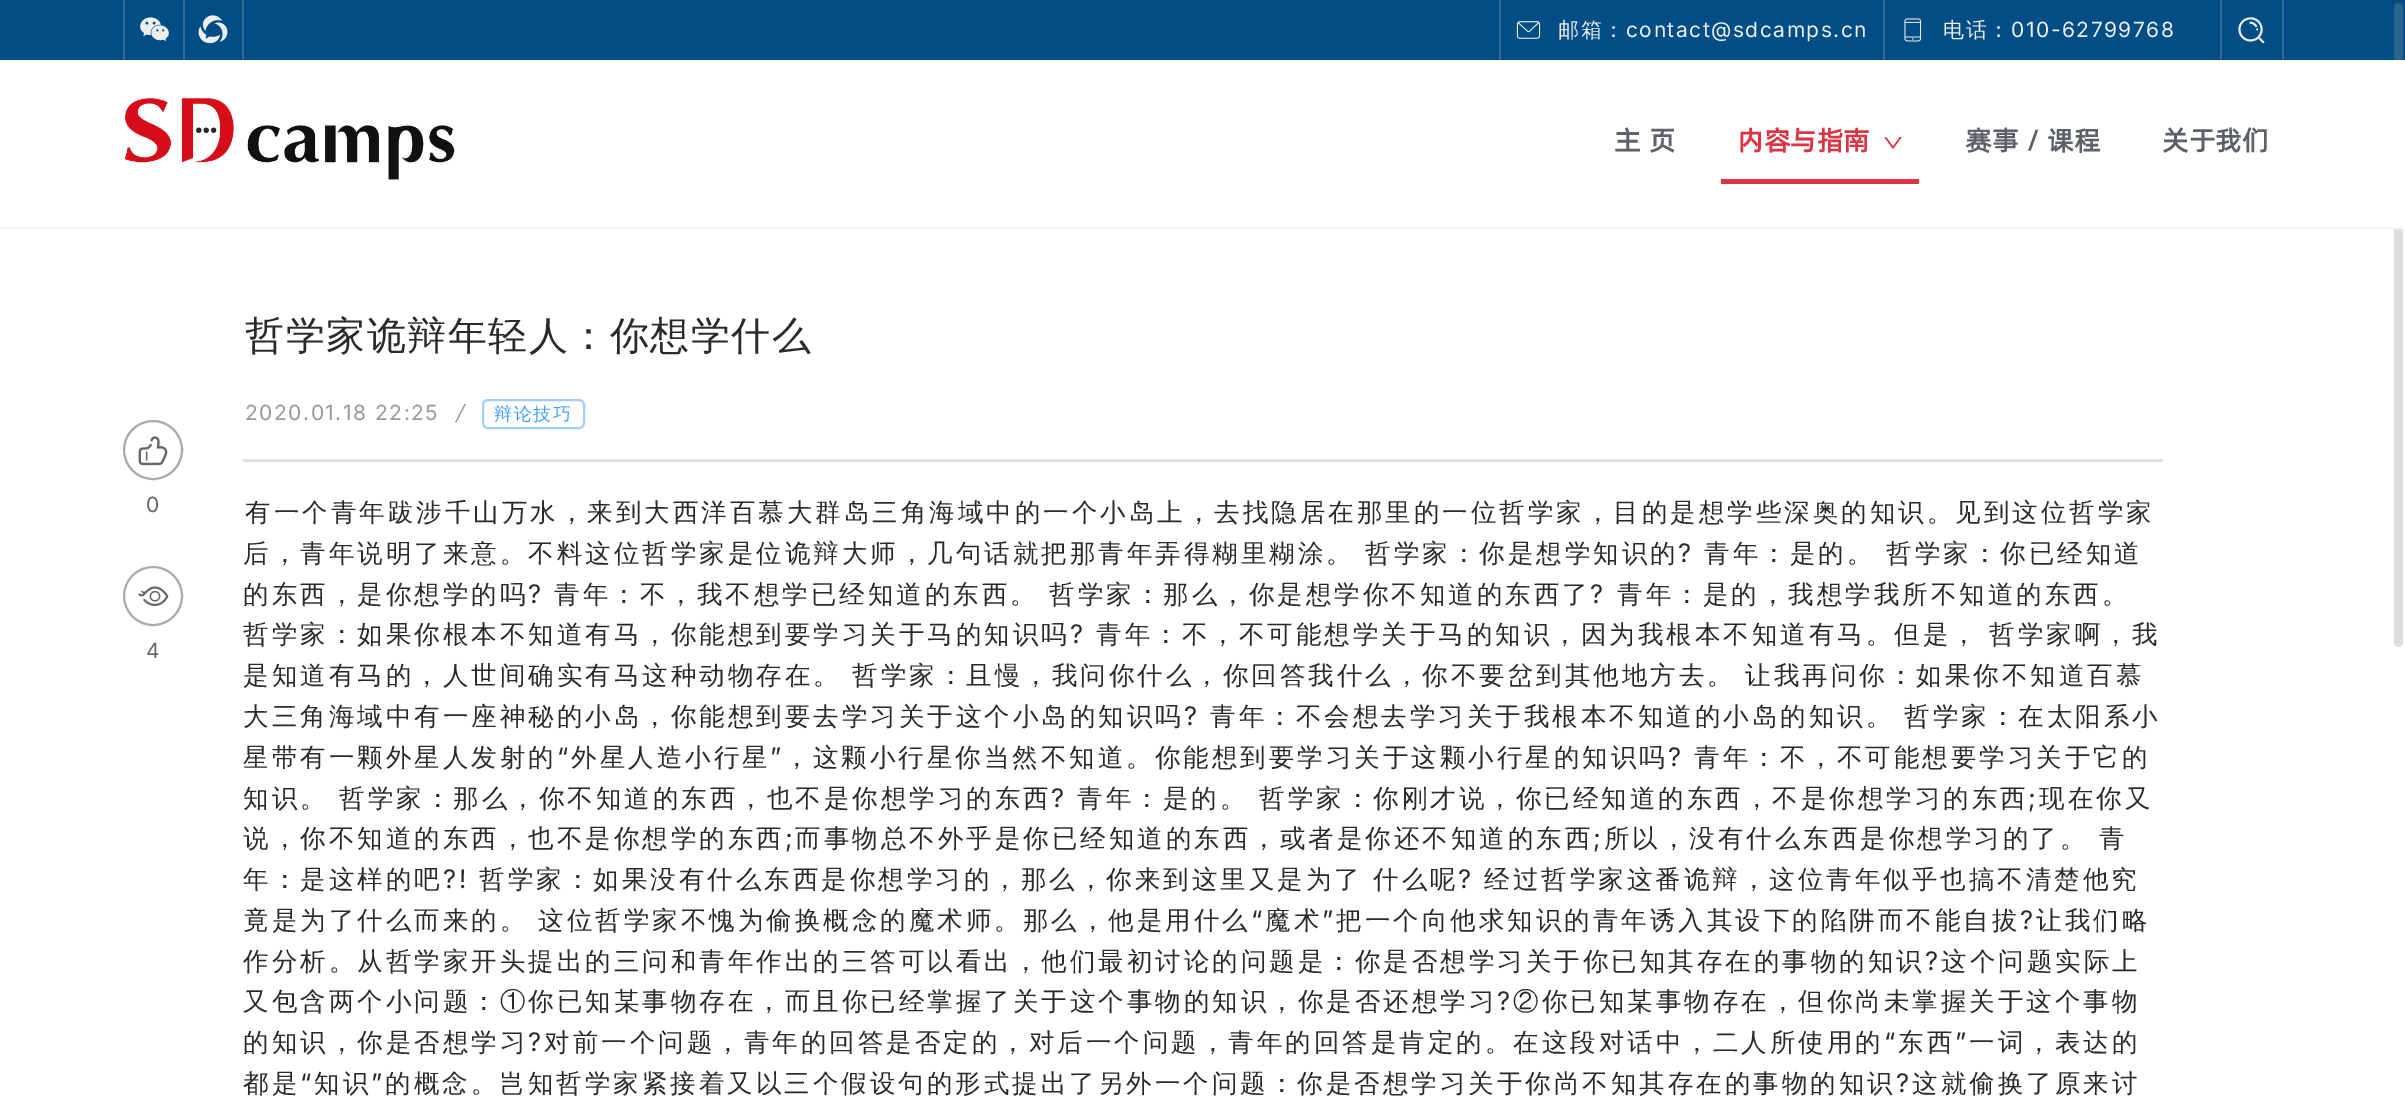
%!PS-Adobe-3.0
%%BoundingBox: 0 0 2405 1115
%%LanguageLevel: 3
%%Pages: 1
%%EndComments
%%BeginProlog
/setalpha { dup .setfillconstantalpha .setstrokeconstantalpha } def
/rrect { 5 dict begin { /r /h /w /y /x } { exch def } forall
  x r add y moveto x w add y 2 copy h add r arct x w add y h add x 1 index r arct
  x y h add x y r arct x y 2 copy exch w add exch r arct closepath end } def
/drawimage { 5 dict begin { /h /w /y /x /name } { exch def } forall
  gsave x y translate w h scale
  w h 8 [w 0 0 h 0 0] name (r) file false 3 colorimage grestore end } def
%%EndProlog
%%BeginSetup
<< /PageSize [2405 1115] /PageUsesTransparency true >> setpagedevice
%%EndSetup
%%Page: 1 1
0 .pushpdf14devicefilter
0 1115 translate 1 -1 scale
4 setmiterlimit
1 setgray
0 0 2405 1115 rectfill
0 0.306 0.522 setrgbcolor
0 0 2405 60 rectfill
0.188 0.42 0.584 setrgbcolor
123 0 2 60 rectfill
(images/1.raw) 140 17 29 24 drawimage
242 0 2 60 rectfill
183 0 2 60 rectfill
(images/2.raw) 198 15 30 29 drawimage
1499 0 2 60 rectfill
(images/3.raw) 1516 21 25 18 drawimage
1883 0 2 60 rectfill
(images/4.raw) 1904 18 18 24 drawimage
2282 0 2 60 rectfill
2220 0 2 60 rectfill
(images/5.raw) 2238 17 27 27 drawimage
0.3 setalpha
0.565 0.576 0.6 setrgbcolor
2394 3 9 644 4.5 rrect fill
1 setalpha
1 setgray
2394 60 9 167 rectfill
0.961 setgray
0 227 2405 2 rectfill
(images/6.raw) 125 98 330 82 drawimage
0.859 0.204 0.267 setrgbcolor
1721 179 198 5 rectfill
(images/7.raw) 1884 137 18 12 drawimage
0.667 setgray
2 setlinewidth
newpath 153 450 29 0 360 arc closepath stroke
(images/8.raw) 138 436 30 30 drawimage
newpath 153 596 29 0 360 arc closepath stroke
(images/9.raw) 138 586 31 21 drawimage
0.627 0.812 1 setrgbcolor
483 400 101 28 5 rrect stroke
0.886 setgray
243 459 1920 3 rectfill
/WenQuanYiZenHei-Medium [21 0 0 -21 0 0] selectfont
0.933 setgray
1558 37 moveto 1.5 0 (邮箱：) ashow
/Inter-Regular [21 0 0 -21 0 0] selectfont
1626 37 moveto 1.5 0 (contact@sdcamps.cn) ashow
/WenQuanYiZenHei-Medium [21 0 0 -21 0 0] selectfont
1943 37 moveto 1.5 0 (电话：) ashow
/Inter-Regular [21 0 0 -21 0 0] selectfont
2011 37 moveto 1.5 0 (010-62799768) ashow
/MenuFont-Bold [27 0 0 -27 0 0] selectfont
0.365 0.384 0.404 setrgbcolor
1614 150 moveto (主) show
1649 150 moveto (页) show
0.859 0.204 0.267 setrgbcolor
1737 150 moveto (内容与指南) show
0.365 0.384 0.404 setrgbcolor
1965 150 moveto (赛事) show
2026 150 moveto (/) show
2047 150 moveto (课程) show
2162 150 moveto (关于我们) show
/Inter-Regular [21 0 0 -21 0 0] selectfont
0.4 setgray
146 512 moveto 1.5 0 (0) ashow
146 658 moveto 1.5 0 (4) ashow
/WenQuanYiZenHei-Medium [39 0 0 -39 0 0] selectfont
0.165 setgray
245 349 moveto 1.5 0 (哲学家诡辩年轻人：你想学什么) ashow
/Inter-Regular [21 0 0 -21 0 0] selectfont
0.6 setgray
245 420 moveto 1.5 0 (2020.01.18 22:25) ashow
/Inter-Italic [21 0 0 -21 0 0] selectfont
455 420 moveto 1.5 0 (/) ashow
/WenQuanYiZenHei-Medium [18 0 0 -18 0 0] selectfont
0.251 0.62 1 setrgbcolor
494 420 moveto 1.5 0 (辩论技巧) ashow
/WenQuanYiZenHei-Medium [25.5 0 0 -25.5 0 0] selectfont
0.165 setgray
245 521 moveto 3 0 (有一个青年跋涉千山万水，来到大西洋百慕大群岛三角海域中的一个小岛上，去找隐居在那里的一位哲学家，目的是想学些深奥的知识。见到这位哲学家) ashow
243 562 moveto 3 0 (后，青年说明了来意。不料这位哲学家是位诡辩大师，几句话就把那青年弄得糊里糊涂。) ashow
1365 562 moveto 3 0 (哲学家：你是想学知识的) ashow
/Inter-Regular [25.5 0 0 -25.5 0 0] selectfont
1678 562 moveto 3 0 (?) ashow
/WenQuanYiZenHei-Medium [25.5 0 0 -25.5 0 0] selectfont
1704 562 moveto 3 0 (青年：是的。) ashow
1886 562 moveto 3 0 (哲学家：你已经知道) ashow
243 603 moveto 3 0 (的东西，是你想学的吗) ashow
/Inter-Regular [25.5 0 0 -25.5 0 0] selectfont
528 603 moveto 3 0 (?) ashow
/WenQuanYiZenHei-Medium [25.5 0 0 -25.5 0 0] selectfont
554 603 moveto 3 0 (青年：不，我不想学已经知道的东西。) ashow
1049 603 moveto 3 0 (哲学家：那么，你是想学你不知道的东西了) ashow
/Inter-Regular [25.5 0 0 -25.5 0 0] selectfont
1590 603 moveto 3 0 (?) ashow
/WenQuanYiZenHei-Medium [25.5 0 0 -25.5 0 0] selectfont
1617 603 moveto 3 0 (青年：是的，我想学我所不知道的东西。) ashow
243 643 moveto 3 0 (哲学家：如果你根本不知道有马，你能想到要学习关于马的知识吗) ashow
/Inter-Regular [25.5 0 0 -25.5 0 0] selectfont
1070 643 moveto 3 0 (?) ashow
/WenQuanYiZenHei-Medium [25.5 0 0 -25.5 0 0] selectfont
1096 643 moveto 3 0 (青年：不，不可能想学关于马的知识，因为我根本不知道有马。但是，) ashow
1989 643 moveto 3 0 (哲学家啊，我) ashow
243 684 moveto 3 0 (是知道有马的，人世间确实有马这种动物存在。) ashow
852 684 moveto 3 0 (哲学家：且慢，我问你什么，你回答我什么，你不要岔到其他地方去。) ashow
1745 684 moveto 3 0 (让我再问你：如果你不知道百慕) ashow
243 725 moveto 3 0 (大三角海域中有一座神秘的小岛，你能想到要去学习关于这个小岛的知识吗) ashow
/Inter-Regular [25.5 0 0 -25.5 0 0] selectfont
1184 725 moveto 3 0 (?) ashow
/WenQuanYiZenHei-Medium [25.5 0 0 -25.5 0 0] selectfont
1210 725 moveto 3 0 (青年：不会想去学习关于我根本不知道的小岛的知识。) ashow
1904 725 moveto 3 0 (哲学家：在太阳系小) ashow
243 766 moveto 3 0 (星带有一颗外星人发射的) ashow
/Inter-Regular [25.5 0 0 -25.5 0 0] selectfont
557 766 moveto 3 0 (“) ashow
/WenQuanYiZenHei-Medium [25.5 0 0 -25.5 0 0] selectfont
571 766 moveto 3 0 (外星人造小行星) ashow
/Inter-Regular [25.5 0 0 -25.5 0 0] selectfont
770 766 moveto 3 0 (”) ashow
/WenQuanYiZenHei-Medium [25.5 0 0 -25.5 0 0] selectfont
784 766 moveto 3 0 (，这颗小行星你当然不知道。你能想到要学习关于这颗小行星的知识吗) ashow
/Inter-Regular [25.5 0 0 -25.5 0 0] selectfont
1668 766 moveto 3 0 (?) ashow
/WenQuanYiZenHei-Medium [25.5 0 0 -25.5 0 0] selectfont
1694 766 moveto 3 0 (青年：不，不可能想要学习关于它的) ashow
243 807 moveto 3 0 (知识。) ashow
339 807 moveto 3 0 (哲学家：那么，你不知道的东西，也不是你想学习的东西) ashow
/Inter-Regular [25.5 0 0 -25.5 0 0] selectfont
1051 807 moveto 3 0 (?) ashow
/WenQuanYiZenHei-Medium [25.5 0 0 -25.5 0 0] selectfont
1077 807 moveto 3 0 (青年：是的。) ashow
1259 807 moveto 3 0 (哲学家：你刚才说，你已经知道的东西，不是你想学习的东西 现在你又) ashow
/Inter-Regular [25.5 0 0 -25.5 0 0] selectfont
2028 807 moveto 3 0 (;) ashow
/WenQuanYiZenHei-Medium [25.5 0 0 -25.5 0 0] selectfont
243 847 moveto 3 0 (说，你不知道的东西，也不是你想学的东西 而事物总不外乎是你已经知道的东西，或者是你还不知道的东西 所以，没有什么东西是你想学习的了。) ashow
2099 847 moveto 3 0 (青) ashow
/Inter-Regular [25.5 0 0 -25.5 0 0] selectfont
785 847 moveto 3 0 (;) ashow
1593 847 moveto 3 0 (;) ashow
/WenQuanYiZenHei-Medium [25.5 0 0 -25.5 0 0] selectfont
243 888 moveto 3 0 (年：是这样的吧) ashow
/Inter-Regular [25.5 0 0 -25.5 0 0] selectfont
443 888 moveto 3 0 (?!) ashow
/WenQuanYiZenHei-Medium [25.5 0 0 -25.5 0 0] selectfont
479 888 moveto 3 0 (哲学家：如果没有什么东西是你想学习的，那么，你来到这里又是为了) ashow
1373 888 moveto 3 0 (什么呢) ashow
/Inter-Regular [25.5 0 0 -25.5 0 0] selectfont
1458 888 moveto 3 0 (?) ashow
/WenQuanYiZenHei-Medium [25.5 0 0 -25.5 0 0] selectfont
1484 888 moveto 3 0 (经过哲学家这番诡辩，这位青年似乎也搞不清楚他究) ashow
243 929 moveto 3 0 (竟是为了什么而来的。) ashow
538 929 moveto 3 0 (这位哲学家不愧为偷换概念的魔术师。那么，他是用什么) ashow
/Inter-Regular [25.5 0 0 -25.5 0 0] selectfont
1251 929 moveto 3 0 (“) ashow
/WenQuanYiZenHei-Medium [25.5 0 0 -25.5 0 0] selectfont
1265 929 moveto 3 0 (魔术) ashow
/Inter-Regular [25.5 0 0 -25.5 0 0] selectfont
1322 929 moveto 3 0 (”) ashow
/WenQuanYiZenHei-Medium [25.5 0 0 -25.5 0 0] selectfont
1336 929 moveto 3 0 (把一个向他求知识的青年诱入其设下的陷阱而不能自拔) ashow
/Inter-Regular [25.5 0 0 -25.5 0 0] selectfont
2020 929 moveto 3 0 (?) ashow
/WenQuanYiZenHei-Medium [25.5 0 0 -25.5 0 0] selectfont
2036 929 moveto 3 0 (让我们略) ashow
243 970 moveto 3 0 (作分析。从哲学家开头提出的三问和青年作出的三答可以看出，他们最初讨论的问题是：你是否想学习关于你已知其存在的事物的知识) ashow
/Inter-Regular [25.5 0 0 -25.5 0 0] selectfont
1925 970 moveto 3 0 (?) ashow
/WenQuanYiZenHei-Medium [25.5 0 0 -25.5 0 0] selectfont
1941 970 moveto 3 0 (这个问题实际上) ashow
243 1010 moveto 3 0 (又包含两个小问题：①你已知某事物存在，而且你已经掌握了关于这个事物的知识，你是否还想学习) ashow
/Inter-Regular [25.5 0 0 -25.5 0 0] selectfont
1497 1010 moveto 3 0 (?) ashow
/WenQuanYiZenHei-Medium [25.5 0 0 -25.5 0 0] selectfont
1513 1010 moveto 3 0 (②你已知某事物存在，但你尚未掌握关于这个事物) ashow
243 1051 moveto 3 0 (的知识，你是否想学习) ashow
/Inter-Regular [25.5 0 0 -25.5 0 0] selectfont
528 1051 moveto 3 0 (?) ashow
/WenQuanYiZenHei-Medium [25.5 0 0 -25.5 0 0] selectfont
544 1051 moveto 3 0 (对前一个问题，青年的回答是否定的，对后一个问题，青年的回答是肯定的。在这段对话中，二人所使用的) ashow
/Inter-Regular [25.5 0 0 -25.5 0 0] selectfont
1884 1051 moveto 3 0 (“) ashow
/WenQuanYiZenHei-Medium [25.5 0 0 -25.5 0 0] selectfont
1898 1051 moveto 3 0 (东西) ashow
/Inter-Regular [25.5 0 0 -25.5 0 0] selectfont
1955 1051 moveto 3 0 (”) ashow
/WenQuanYiZenHei-Medium [25.5 0 0 -25.5 0 0] selectfont
1969 1051 moveto 3 0 (一词，表达的) ashow
243 1092 moveto 3 0 (都是) ashow
/Inter-Regular [25.5 0 0 -25.5 0 0] selectfont
300 1092 moveto 3 0 (“) ashow
/WenQuanYiZenHei-Medium [25.5 0 0 -25.5 0 0] selectfont
314 1092 moveto 3 0 (知识) ashow
/Inter-Regular [25.5 0 0 -25.5 0 0] selectfont
371 1092 moveto 3 0 (”) ashow
/WenQuanYiZenHei-Medium [25.5 0 0 -25.5 0 0] selectfont
385 1092 moveto 3 0 (的概念。岂知哲学家紧接着又以三个假设句的形式提出了另外一个问题：你是否想学习关于你尚不知其存在的事物的知识) ashow
/Inter-Regular [25.5 0 0 -25.5 0 0] selectfont
1896 1092 moveto 3 0 (?) ashow
/WenQuanYiZenHei-Medium [25.5 0 0 -25.5 0 0] selectfont
1912 1092 moveto 3 0 (这就偷换了原来讨) ashow
.poppdf14devicefilter showpage
%%EOF
